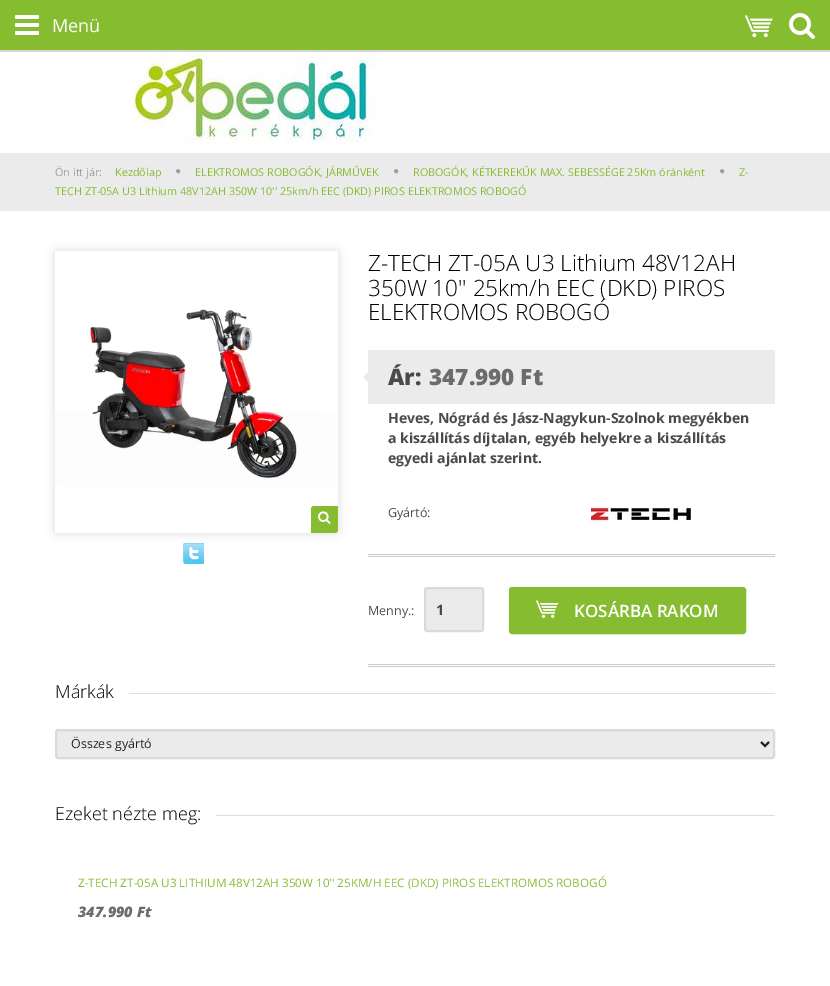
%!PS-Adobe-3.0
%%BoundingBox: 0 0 830 986
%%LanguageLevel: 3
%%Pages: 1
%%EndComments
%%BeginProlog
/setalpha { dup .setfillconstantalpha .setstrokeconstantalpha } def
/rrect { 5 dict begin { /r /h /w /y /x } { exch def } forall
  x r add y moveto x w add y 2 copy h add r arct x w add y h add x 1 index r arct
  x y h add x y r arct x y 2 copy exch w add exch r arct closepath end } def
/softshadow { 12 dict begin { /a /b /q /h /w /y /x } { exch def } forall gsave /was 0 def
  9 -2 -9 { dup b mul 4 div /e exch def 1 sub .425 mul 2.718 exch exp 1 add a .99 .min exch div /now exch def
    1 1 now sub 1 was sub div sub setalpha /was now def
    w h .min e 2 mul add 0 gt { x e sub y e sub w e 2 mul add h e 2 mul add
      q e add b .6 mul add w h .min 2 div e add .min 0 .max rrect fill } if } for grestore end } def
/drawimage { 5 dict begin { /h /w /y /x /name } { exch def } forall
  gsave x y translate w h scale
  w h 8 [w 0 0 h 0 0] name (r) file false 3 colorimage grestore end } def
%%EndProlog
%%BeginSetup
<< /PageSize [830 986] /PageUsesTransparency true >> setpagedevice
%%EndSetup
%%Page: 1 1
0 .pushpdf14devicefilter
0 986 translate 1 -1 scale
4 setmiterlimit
1 setgray
0 0 830 986 rectfill
0.522 0.737 0.188 setrgbcolor
0 0 830 50 rectfill
(images/1.raw) 15 15 24 20 drawimage
(images/2.raw) 745 15 28 23 drawimage
(images/3.raw) 789 13 26 26 drawimage
0.843 setgray
0 50 830 2 rectfill
(images/4.raw) 134 52 241 96 drawimage
0.922 setgray
0 153 830 58 rectfill
(images/5.raw) 176 169 5 5 drawimage
(images/5.raw) 394 169 5 5 drawimage
(images/5.raw) 720 169 5 5 drawimage
0 setgray
53 249 287 286 5 4 0.1 softshadow
(images/6.raw) 55 251 283 282 drawimage
0.522 0.737 0.188 setrgbcolor
newpath 314 506 moveto 338 506 lineto 338 530 lineto 338 531.5 336.5 533 335 533 curveto 311 533 lineto 311 509 lineto 311 507.5 312.5 506 314 506 curveto closepath fill
(images/7.raw) 318 511 13 13 drawimage
(images/8.raw) 183 543 21 21 drawimage
0.922 setgray
368 350 407 54 rectfill
newpath 368 372 moveto 368 382 lineto 363 377 lineto closepath fill
(images/9.raw) 591 506 100 17 drawimage
0.8 setgray
368 554 407 1 rectfill
368 556 407 1 rectfill
368 664 407 1 rectfill
368 666 407 1 rectfill
0.922 setgray
425 588 58 43 2 rrect gsave fill grestore
0.855 setgray
2 setlinewidth
stroke
0.522 0.737 0.188 setrgbcolor
510 588 235 45 2 rrect gsave fill grestore
stroke
(images/10.raw) 536 600 23 18 drawimage
0.867 setgray
129 693 646 1 rectfill
0.922 setgray
56 730 718 28 2 rrect gsave fill grestore
0.855 setgray
stroke
0.133 setgray
newpath 761 742 moveto 765 746 lineto 769 742 lineto stroke
0.867 setgray
216 815 559 1 rectfill
/OpenSans-Regular [18 0 0 -18 0 0] selectfont
1 setgray
52 32 moveto (Menü) show
/OpenSans-Regular [10.8 0 0 -10.8 0 0] selectfont
0.608 0.612 0.612 setrgbcolor
55 176 moveto (Ön itt jár:) show
0.522 0.737 0.188 setrgbcolor
115 176 moveto (Kezdőlap) show
195 176 moveto (ELEKTROMOS ROBOGÓK, JÁRMŰVEK) show
413 176 moveto (ROBOGÓK, KÉTKEREKŰK MAX. SEBESSÉGE 25Km óránként) show
739 176 moveto (Z-) show
55 195 moveto (TECH ZT-05A U3 Lithium 48V12AH 350W 10'' 25km/h EEC \(DKD\) PIROS ELEKTROMOS ROBOGÓ) show
/OpenSans-Light [22.5 0 0 -22.5 0 0] selectfont
0 setgray
368 271 moveto (Z-TECH ZT-05A U3 Lithium 48V12AH) show
368 296 moveto (350W 10'' 25km/h EEC \(DKD\) PIROS) show
368 320 moveto (ELEKTROMOS ROBOGÓ) show
/OpenSans-ExtraBold [22.5 0 0 -22.5 0 0] selectfont
0.29 setgray
388 385 moveto (Ár:) show
0.424 setgray
429 385 moveto (347.990 Ft) show
/OpenSans-Bold [14 0 0 -14 0 0] selectfont
0.29 setgray
388 423 moveto (Heves, Nógrád és Jász-Nagykun-Szolnok megyékben) show
388 443 moveto (a kiszállítás díjtalan, egyéb helyekre a kiszállítás) show
388 463 moveto (egyedi ajánlat szerint.) show
/OpenSans-Regular [12.5 0 0 -12.5 0 0] selectfont
388 517 moveto (Gyártó:) show
368 615 moveto (Menny.:) show
/OpenSans-Bold [14.5 0 0 -14.5 0 0] selectfont
436 615 moveto (1) show
/OpenSans-SemiBold [17 0 0 -17 0 0] selectfont
1 setgray
574 617 moveto (KOSÁRBA RAKOM) show
/OpenSans-Light [18 0 0 -18 0 0] selectfont
0 setgray
55 698 moveto (Márkák) show
/OpenSans-Regular [12.5 0 0 -12.5 0 0] selectfont
0.133 setgray
71 748 moveto (Összes gyártó) show
/OpenSans-Light [18 0 0 -18 0 0] selectfont
0 setgray
55 820 moveto (Ezeket nézte meg:) show
/OpenSans-Regular [11.7 0 0 -11.7 0 0] selectfont
0.522 0.737 0.188 setrgbcolor
78 887 moveto (Z-TECH ZT-05A U3 LITHIUM 48V12AH 350W 10'' 25KM/H EEC \(DKD\) PIROS ELEKTROMOS ROBOGÓ) show
/OpenSans-ExtraBoldItalic [14.5 0 0 -14.5 0 0] selectfont
0.424 setgray
78 917 moveto (347.990 Ft) show
.poppdf14devicefilter showpage
%%EOF
